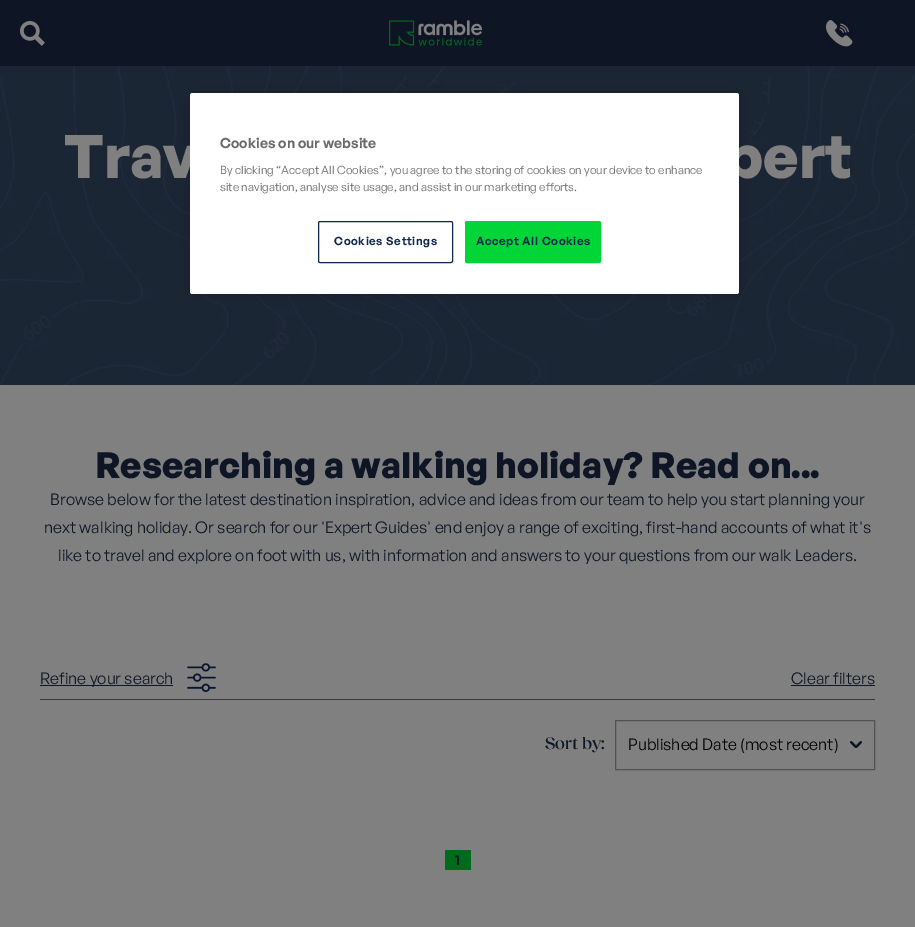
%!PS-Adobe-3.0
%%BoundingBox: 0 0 915 927
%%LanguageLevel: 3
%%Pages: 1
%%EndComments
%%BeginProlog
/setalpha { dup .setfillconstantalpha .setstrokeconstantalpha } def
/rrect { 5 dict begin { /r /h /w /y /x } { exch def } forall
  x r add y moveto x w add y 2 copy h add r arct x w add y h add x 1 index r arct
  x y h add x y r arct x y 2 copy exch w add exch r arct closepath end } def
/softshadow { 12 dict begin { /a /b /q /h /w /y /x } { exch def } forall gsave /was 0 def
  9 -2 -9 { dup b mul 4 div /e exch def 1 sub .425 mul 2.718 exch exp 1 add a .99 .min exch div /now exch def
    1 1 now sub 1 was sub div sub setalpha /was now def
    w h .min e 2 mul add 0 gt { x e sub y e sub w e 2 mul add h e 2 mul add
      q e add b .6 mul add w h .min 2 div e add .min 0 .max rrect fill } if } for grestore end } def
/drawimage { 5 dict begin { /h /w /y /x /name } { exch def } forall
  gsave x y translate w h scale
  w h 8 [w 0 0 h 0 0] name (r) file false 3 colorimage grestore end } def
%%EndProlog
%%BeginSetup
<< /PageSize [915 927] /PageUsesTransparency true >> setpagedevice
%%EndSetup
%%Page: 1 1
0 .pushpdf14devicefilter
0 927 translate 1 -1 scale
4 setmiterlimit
0.502 setgray
0 0 915 927 rectfill
0.055 0.082 0.145 setrgbcolor
0 0 915 66 rectfill
(images/1.raw) 20 21 25 25 drawimage
(images/2.raw) 389 20 93 26 drawimage
(images/3.raw) 826 20 27 27 drawimage
(images/4.raw) 0 66 915 319 drawimage
0 setgray
190 93 549 201 2.5 9 0.2 softshadow
0.22 setgray
40 699 835 1 rectfill
0.055 0.082 0.145 setrgbcolor
40 685 133 1 rectfill
(images/5.raw) 187 663 29 29 drawimage
791 685 84 1 rectfill
(images/6.raw) 850 741 12 7 drawimage
0.325 0.318 0.318 setrgbcolor
615.5 720.5 259 49 rectstroke
0.004 0.42 0.11 setrgbcolor
445 850 26 20 rectfill
/GeneralSans-Bold [60 0 0 -60 0 0] selectfont
0.502 setgray
64 178 moveto (Trav) show
725 178 moveto (pert) show
1 setgray
190 93 549 201 2.5 rrect fill
/GeneralSans-SemiBold [14 0 0 -14 0 0] selectfont
0.412 setgray
220 148 moveto (Cookies on our website) show
/GeneralSans-Regular [11.4 0 0 -11.4 0 0] selectfont
220 174 moveto (By clicking “Accept All Cookies”, you agree to the storing of cookies on your device to enhance) show
220 191 moveto (site navigation, analyse site usage, and assist in our marketing efforts.) show
0.059 0.153 0.298 setrgbcolor
318.5 221.5 134 41 1.5 rrect stroke
/GeneralSans-SemiBold [11.4 0 0 -11.4 0 0] selectfont
334 245 moveto 0.6 0 (Cookies Settings) ashow
0.004 0.835 0.22 setrgbcolor
465.5 221.5 135 41 1.5 rrect gsave fill grestore
stroke
0.059 0.153 0.298 setrgbcolor
476 245 moveto 0.6 0 (Accept All Cookies) ashow
/GeneralSans-Bold [36 0 0 -36 0 0] selectfont
0.055 0.082 0.145 setrgbcolor
95 478 moveto (Researching a walking holiday? Read on...) show
/GeneralSans-Regular [16 0 0 -16 0 0] selectfont
50 505 moveto (Browse below for the latest destination inspiration, advice and ideas from our team to help you start planning your) show
44 533 moveto (next walking holiday. Or search for our 'Expert Guides' end enjoy a range of exciting, first-hand accounts of what it's) show
58 561 moveto (like to travel and explore on foot with us, with information and answers to your questions from our walk Leaders.) show
40 684 moveto (Refine your search) show
791 684 moveto (Clear filters) show
/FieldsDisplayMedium-Medium [17 0 0 -17 0 0] selectfont
545 749 moveto (Sort by:) show
/GeneralSans-Regular [16 0 0 -16 0 0] selectfont
0 setgray
628 750 moveto (Published Date \(most recent\)) show
/GeneralSans-SemiBold [14 0 0 -14 0 0] selectfont
0.055 0.082 0.145 setrgbcolor
455 865 moveto (1) show
.poppdf14devicefilter showpage
%%EOF
